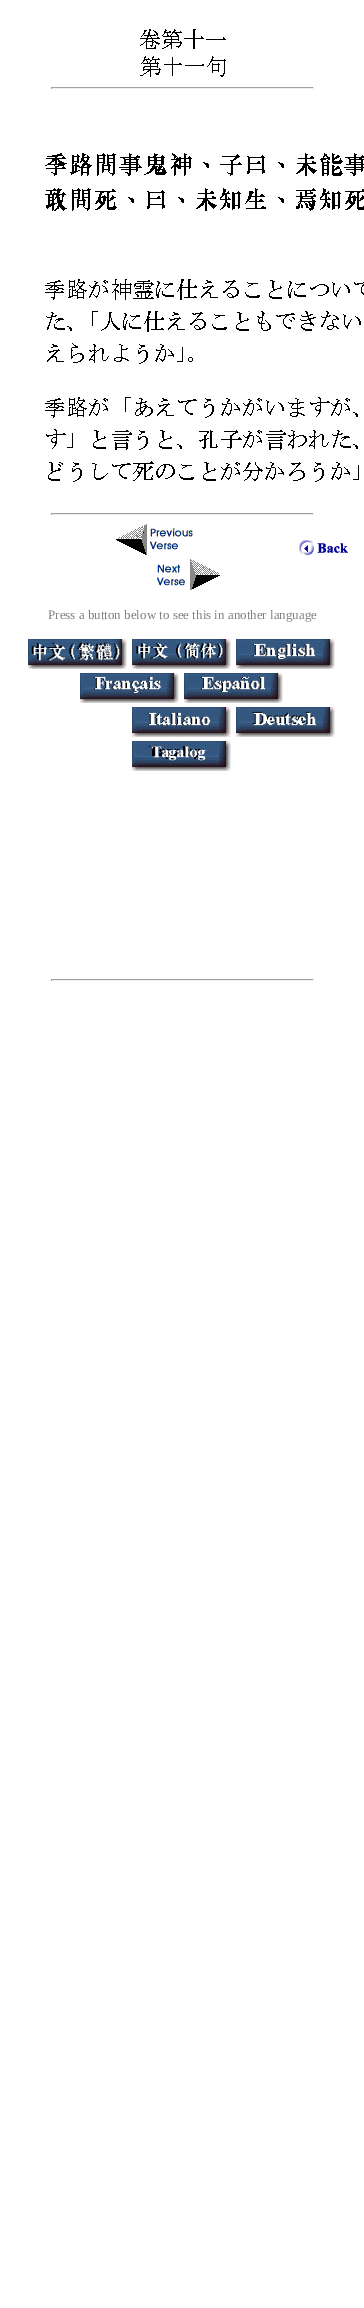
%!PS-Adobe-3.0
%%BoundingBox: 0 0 364 2308
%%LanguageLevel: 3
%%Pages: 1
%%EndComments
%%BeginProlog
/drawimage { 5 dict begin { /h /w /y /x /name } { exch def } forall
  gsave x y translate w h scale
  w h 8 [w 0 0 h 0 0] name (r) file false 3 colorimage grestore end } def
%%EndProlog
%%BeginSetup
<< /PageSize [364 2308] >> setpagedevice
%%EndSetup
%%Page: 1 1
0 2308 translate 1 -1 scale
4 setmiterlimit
1 setgray
0 0 364 2308 rectfill
(images/1.raw) 140 29 86 20 drawimage
(images/2.raw) 140 56 86 21 drawimage
0.624 setgray
51 87 263 1 rectfill
0.933 setgray
313 87 1 2 rectfill
51 88 263 1 rectfill
0.624 setgray
51 87 1 2 rectfill
(images/3.raw) 45 153 319 58 drawimage
(images/4.raw) 45 279 319 203 drawimage
51 513 263 1 rectfill
0.933 setgray
313 513 1 2 rectfill
51 514 263 1 rectfill
0.624 setgray
51 513 1 2 rectfill
(images/5.raw) 116 524 77 31 drawimage
(images/6.raw) 299 540 49 15 drawimage
(images/7.raw) 157 559 63 31 drawimage
(images/8.raw) 28 639 99 30 drawimage
(images/9.raw) 132 639 99 30 drawimage
(images/10.raw) 236 639 99 30 drawimage
(images/11.raw) 80 673 99 30 drawimage
(images/12.raw) 184 673 99 30 drawimage
(images/13.raw) 132 707 99 30 drawimage
(images/14.raw) 236 707 99 30 drawimage
(images/15.raw) 132 741 99 30 drawimage
51 979 263 1 rectfill
0.933 setgray
313 979 1 2 rectfill
51 980 263 1 rectfill
0.624 setgray
51 979 1 2 rectfill
/LiberationSerif-Regular [13 0 0 -13 0 0] selectfont
0.502 setgray
48 619 moveto (Press a button below to see this in another language) show
showpage
%%EOF
